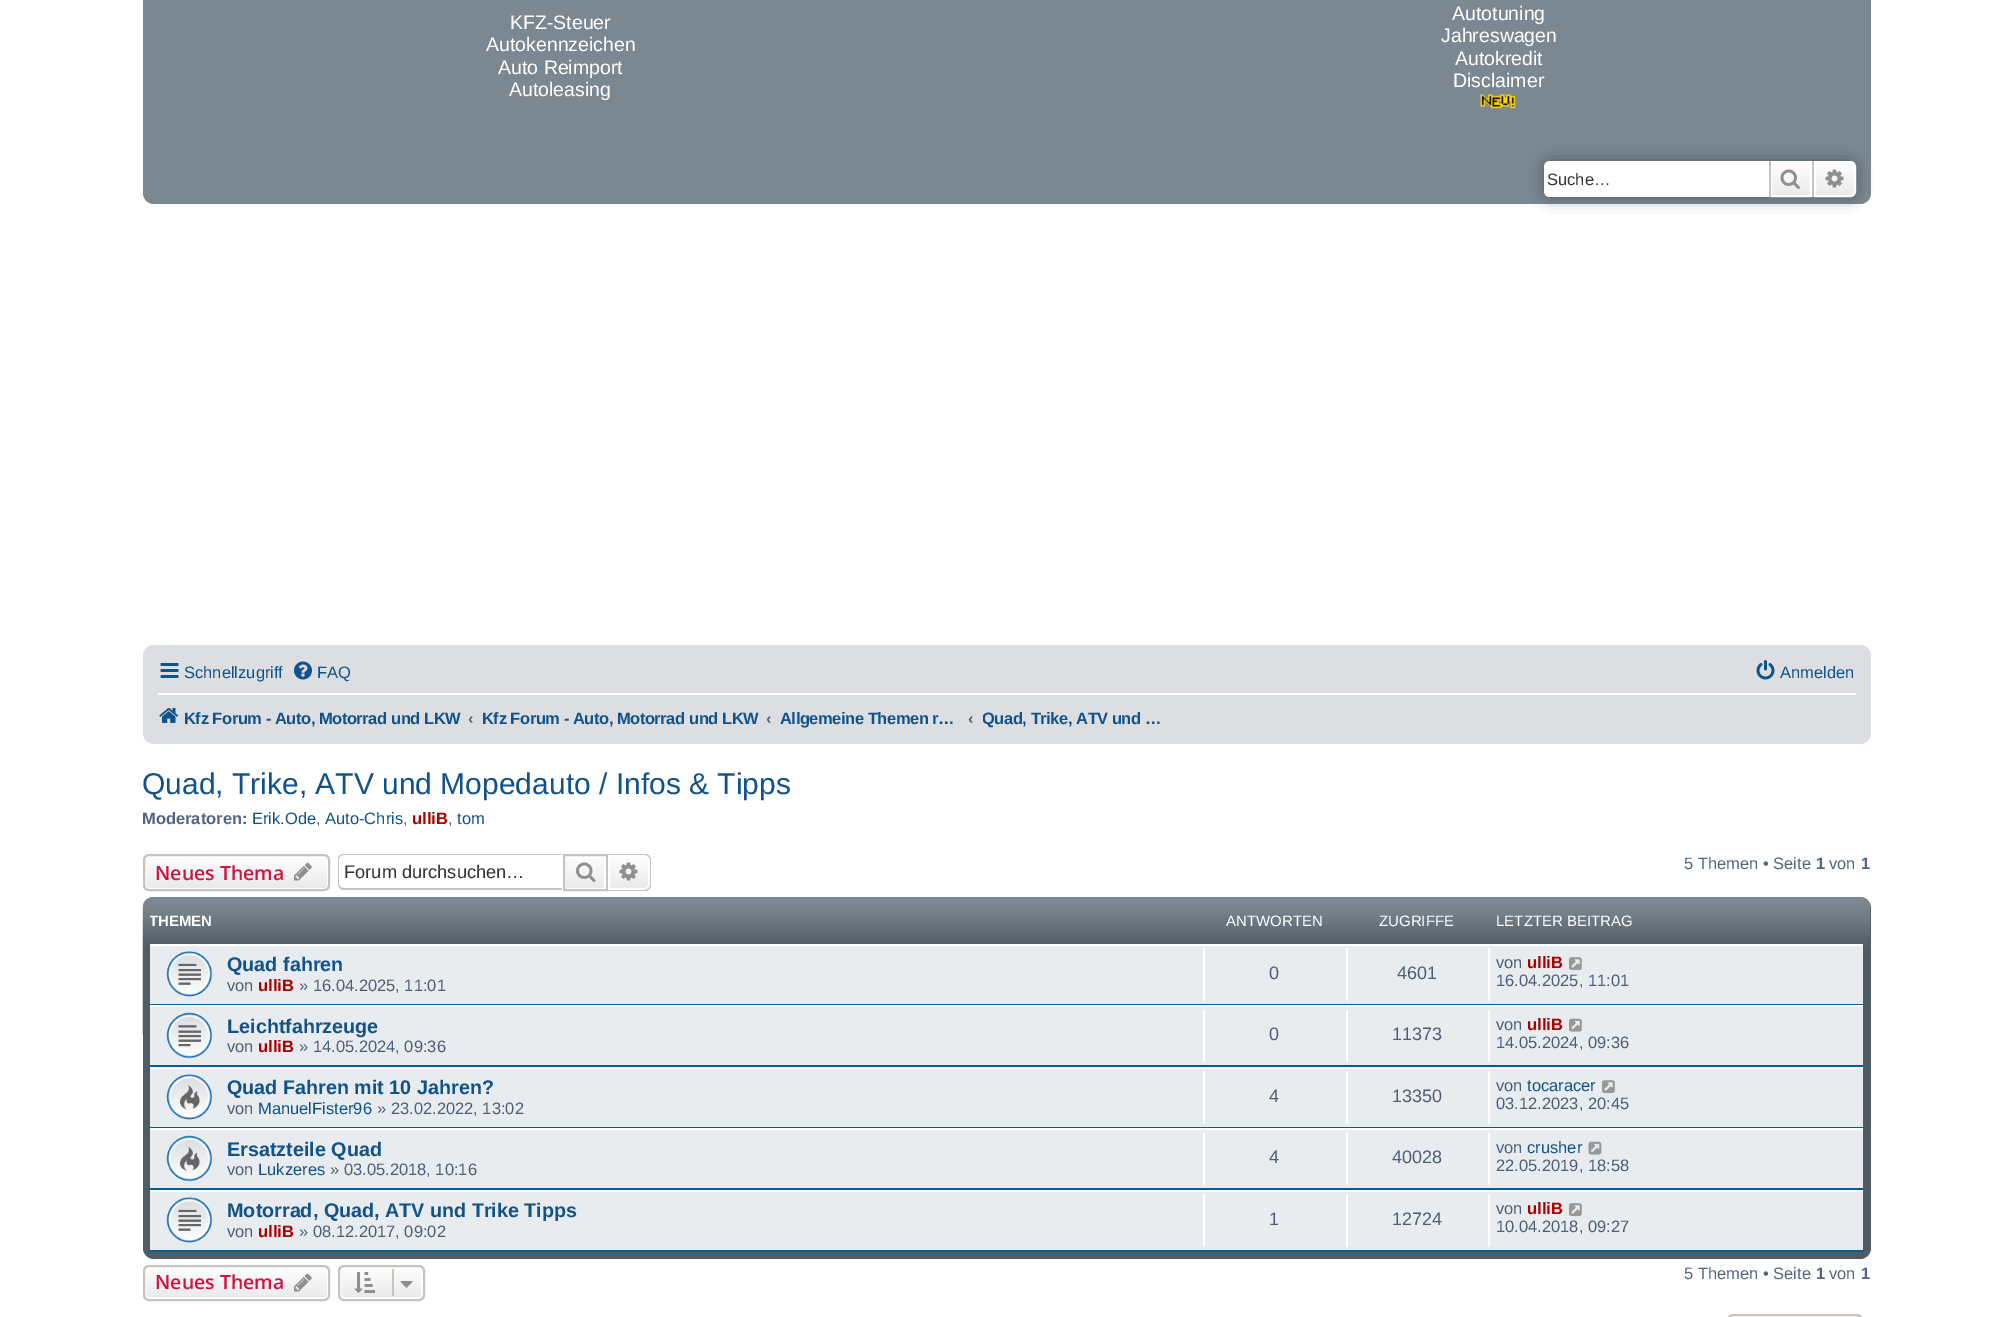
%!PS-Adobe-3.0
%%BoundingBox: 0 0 2011 1317
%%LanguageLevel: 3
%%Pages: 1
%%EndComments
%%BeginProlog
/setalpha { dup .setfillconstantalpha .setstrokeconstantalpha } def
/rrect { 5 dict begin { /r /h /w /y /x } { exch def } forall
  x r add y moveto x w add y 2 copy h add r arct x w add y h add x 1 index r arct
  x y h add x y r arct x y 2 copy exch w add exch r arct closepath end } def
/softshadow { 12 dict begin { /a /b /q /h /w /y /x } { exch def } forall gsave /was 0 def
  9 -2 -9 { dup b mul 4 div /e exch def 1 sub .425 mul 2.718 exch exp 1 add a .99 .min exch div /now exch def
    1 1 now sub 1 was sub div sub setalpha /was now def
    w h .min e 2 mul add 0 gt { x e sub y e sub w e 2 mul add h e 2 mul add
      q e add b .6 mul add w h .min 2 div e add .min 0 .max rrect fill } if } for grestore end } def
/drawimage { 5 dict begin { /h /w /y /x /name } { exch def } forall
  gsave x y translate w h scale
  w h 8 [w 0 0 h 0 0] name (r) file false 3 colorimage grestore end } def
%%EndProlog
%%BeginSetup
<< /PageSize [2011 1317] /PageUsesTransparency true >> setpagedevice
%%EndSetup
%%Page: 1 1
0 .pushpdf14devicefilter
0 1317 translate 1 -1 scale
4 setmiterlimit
1 setgray
0 0 2011 1317 rectfill
0.486 0.533 0.569 setrgbcolor
143 -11 1728 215 11 rrect fill
(images/1.raw) 1480 94 36 15 drawimage
0.314 0.361 0.396 setrgbcolor
1544 161 312 36 6 7.5 1 softshadow
1 setgray
newpath 1550 161 moveto 1769 161 lineto 1769 197 lineto 1550 197 lineto 1546.5 197 1544 194.5 1544 191 curveto 1544 167 lineto 1544 163.5 1546.5 161 1550 161 curveto closepath fill
gsave newpath 1772 163 moveto 1810 163 lineto 1810 195 lineto 1772 195 lineto closepath clip newpath
<< /ShadingType 2 /ColorSpace /DeviceRGB /Coords [1791 161 1791 197] /Extend [true true] /Function << /FunctionType 2 /Domain [0 1] /C0 [1 1 1] /C1 [0.914 0.914 0.914] /N 1 >> >> shfill grestore
2 setlinewidth
1771 162 40 34 rectstroke
0.78 0.765 0.749 setrgbcolor
1812 161 2 36 rectfill
1769 161 2 36 rectfill
(images/2.raw) 1780 169 20 20 drawimage
gsave newpath 1815 162 moveto 1850 162 lineto 1853 162 1855 164 1855 167 curveto 1855 191 lineto 1855 194 1853 196 1850 196 curveto 1815 196 lineto closepath clip newpath
<< /ShadingType 2 /ColorSpace /DeviceRGB /Coords [1835 161 1835 197] /Extend [true true] /Function << /FunctionType 2 /Domain [0 1] /C0 [1 1 1] /C1 [0.914 0.914 0.914] /N 1 >> >> shfill grestore
1 setgray
newpath 1815 162 moveto 1850 162 lineto 1853 162 1855 164 1855 167 curveto 1855 191 lineto 1855 194 1853 196 1850 196 curveto 1815 196 lineto closepath stroke
(images/3.raw) 1825 169 19 19 drawimage
0.863 0.871 0.886 setrgbcolor
143 645 1728 99 11 rrect fill
(images/4.raw) 160 663 19 15 drawimage
(images/5.raw) 294 661 18 19 drawimage
(images/6.raw) 1756 660 19 20 drawimage
1 setgray
158 693 1698 2 rectfill
(images/7.raw) 159 708 20 15 drawimage
gsave
143 854 187 37 6 rrect clip newpath
gsave newpath 143 855 moveto 330 855 lineto 330 890 lineto 143 890 lineto closepath clip newpath
<< /ShadingType 2 /ColorSpace /DeviceRGB /Coords [236 855 236 890] /Extend [true true] /Function << /FunctionType 2 /Domain [0 1] /C0 [1 1 1] /C1 [0.914 0.914 0.914] /N 1 >> >> shfill grestore
grestore
145 856 183 33 4 rrect stroke
0.78 0.765 0.749 setrgbcolor
144 855 185 35 5 rrect stroke
(images/8.raw) 294 862 18 19 drawimage
newpath 344 854 moveto 562 854 lineto 562 890 lineto 344 890 lineto 340 890 338 887 338 884 curveto 338 860 lineto 338 856 340 854 344 854 curveto closepath 344 855 moveto 562 855 lineto 562 888 lineto 344 888 lineto 341 888 339 886 339 884 curveto 339 860 lineto 339 857 341 855 344 855 curveto closepath eofill
gsave newpath 566 859 moveto 604 859 lineto 604 888 lineto 566 888 lineto closepath clip newpath
<< /ShadingType 2 /ColorSpace /DeviceRGB /Coords [585 855 585 890] /Extend [true true] /Function << /FunctionType 2 /Domain [0 1] /C0 [1 1 1] /C1 [0.914 0.914 0.914] /N 1 >> >> shfill grestore
564 855 43 35 rectstroke
(images/9.raw) 576 862 20 20 drawimage
gsave newpath 609 856 moveto 645 856 lineto 647 856 649 858 649 860 curveto 649 885 lineto 649 887 647 889 645 889 curveto 609 889 lineto closepath clip newpath
<< /ShadingType 2 /ColorSpace /DeviceRGB /Coords [629 855 629 890] /Extend [true true] /Function << /FunctionType 2 /Domain [0 1] /C0 [1 1 1] /C1 [0.914 0.914 0.914] /N 1 >> >> shfill grestore
1 setgray
newpath 609 856 moveto 645 856 lineto 647 856 649 858 649 860 curveto 649 885 lineto 649 887 647 889 645 889 curveto 609 889 lineto closepath stroke
0.78 0.765 0.749 setrgbcolor
newpath 608 854 moveto 645 854 lineto 648 854 651 856 651 860 curveto 651 885 lineto 651 888 648 891 645 891 curveto 608 891 lineto closepath 608 855 moveto 645 855 lineto 647 855 650 857 650 860 curveto 650 885 lineto 650 887 647 890 645 890 curveto 608 890 lineto closepath eofill
(images/10.raw) 619 862 19 19 drawimage
0.314 0.361 0.396 setrgbcolor
143 897 1728 362 11 rrect fill
(images/11.raw) 142 897 1729 138 drawimage
0.91 0.925 0.933 setrgbcolor
150 946 1713 58 rectfill
1 setgray
150 944 1713 2 rectfill
0 0.376 0.561 setrgbcolor
150 1004 1713 1 rectfill
(images/12.raw) 166 951 47 46 drawimage
1 setgray
1203 948 2 53 rectfill
1346 948 2 53 rectfill
1488 948 2 53 rectfill
(images/13.raw) 1569 957 13 14 drawimage
0.91 0.925 0.933 setrgbcolor
150 1007 1713 58 rectfill
1 setgray
150 1005 1713 2 rectfill
0 0.376 0.561 setrgbcolor
150 1065 1713 2 rectfill
(images/14.raw) 166 1012 47 47 drawimage
1 setgray
1203 1010 2 52 rectfill
1346 1010 2 52 rectfill
1488 1010 2 52 rectfill
(images/15.raw) 1569 1018 13 14 drawimage
0.91 0.925 0.933 setrgbcolor
150 1069 1713 58 rectfill
1 setgray
150 1067 1713 2 rectfill
0 0.376 0.561 setrgbcolor
150 1127 1713 1 rectfill
(images/16.raw) 166 1074 47 46 drawimage
1 setgray
1203 1071 2 53 rectfill
1346 1071 2 53 rectfill
1488 1071 2 53 rectfill
(images/13.raw) 1602 1080 13 14 drawimage
0.91 0.925 0.933 setrgbcolor
150 1130 1713 58 rectfill
1 setgray
150 1128 1713 2 rectfill
0 0.376 0.561 setrgbcolor
150 1188 1713 2 rectfill
(images/17.raw) 166 1135 47 47 drawimage
1 setgray
1203 1133 2 52 rectfill
1346 1133 2 52 rectfill
1488 1133 2 52 rectfill
(images/18.raw) 1588 1141 14 14 drawimage
0.91 0.925 0.933 setrgbcolor
150 1192 1713 58 rectfill
1 setgray
150 1190 1713 2 rectfill
0 0.376 0.561 setrgbcolor
150 1250 1713 2 rectfill
(images/12.raw) 166 1197 47 46 drawimage
1 setgray
1203 1194 2 53 rectfill
1346 1194 2 53 rectfill
1488 1194 2 53 rectfill
(images/13.raw) 1569 1203 13 14 drawimage
gsave
143 1265 187 36 6 rrect clip newpath
gsave newpath 143 1266 moveto 330 1266 lineto 330 1299 lineto 143 1299 lineto closepath clip newpath
<< /ShadingType 2 /ColorSpace /DeviceRGB /Coords [236 1266 236 1299] /Extend [true true] /Function << /FunctionType 2 /Domain [0 1] /C0 [1 1 1] /C1 [0.914 0.914 0.914] /N 1 >> >> shfill grestore
grestore
145 1267 183 31 4 rrect stroke
0.78 0.765 0.749 setrgbcolor
144 1266 185 34 5 rrect stroke
(images/19.raw) 294 1273 18 19 drawimage
gsave
338 1265 87 36 6 rrect clip newpath
gsave newpath 338 1266 moveto 425 1266 lineto 425 1299 lineto 338 1299 lineto closepath clip newpath
<< /ShadingType 2 /ColorSpace /DeviceRGB /Coords [381 1266 381 1299] /Extend [true true] /Function << /FunctionType 2 /Domain [0 1] /C0 [1 1 1] /C1 [0.914 0.914 0.914] /N 1 >> >> shfill grestore
grestore
1 setgray
340 1267 82 31 4 rrect stroke
0.78 0.765 0.749 setrgbcolor
339 1266 85 34 5 rrect stroke
(images/20.raw) 354 1272 21 21 drawimage
392 1269 2 27 rectfill
(images/21.raw) 400 1281 13 7 drawimage
1728 1315 134 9 5 rrect stroke
/LiberationSans-Regular [19.5 0 0 -19.5 0 0] selectfont
1 setgray
510 29 moveto (KFZ-Steuer) show
486 51 moveto (Autokennzeichen) show
498 74 moveto (Auto Reimport) show
509 96 moveto (Autoleasing) show
1452 20 moveto (Autotuning) show
1441 42 moveto (Jahreswagen) show
1455 65 moveto (Autokredit) show
1453 87 moveto (Disclaimer) show
/LiberationSans-Regular [16.5 0 0 -16.5 0 0] selectfont
0.2 setgray
1547 185 moveto (Suche…) show
0.063 0.322 0.537 setrgbcolor
184 678 moveto (Schnellzugriff) show
317 678 moveto (FAQ) show
1780 678 moveto (Anmelden) show
/LiberationSans-Bold [16.5 0 0 -16.5 0 0] selectfont
184 724 moveto -0.45 0 (Kfz Forum - Auto, Motorrad und LKW) ashow
0.325 0.392 0.51 setrgbcolor
468 724 moveto (‹) show
0.063 0.322 0.537 setrgbcolor
482 724 moveto -0.45 0 (Kfz Forum - Auto, Motorrad und LKW) ashow
0.325 0.392 0.51 setrgbcolor
766 724 moveto (‹) show
0.063 0.322 0.537 setrgbcolor
780 724 moveto -0.45 0 (Allgemeine Themen r…) ashow
0.325 0.392 0.51 setrgbcolor
968 724 moveto (‹) show
gsave
983 699 180 38 rectclip
0.063 0.322 0.537 setrgbcolor
982 724 moveto -0.45 0 (Quad, Trike, ATV und …) ashow
grestore
/LiberationSans-Regular [30 0 0 -30 0 0] selectfont
0.063 0.322 0.537 setrgbcolor
142 794 moveto (Quad, Trike, ATV und Mopedauto / Infos & Tipps) show
/LiberationSans-Bold [16.5 0 0 -16.5 0 0] selectfont
0.325 0.392 0.51 setrgbcolor
142 824 moveto (Moderatoren:) show
/LiberationSans-Regular [16.5 0 0 -16.5 0 0] selectfont
0.063 0.322 0.537 setrgbcolor
252 824 moveto (Erik.Ode) show
0.325 0.392 0.51 setrgbcolor
316 824 moveto (,) show
0.063 0.322 0.537 setrgbcolor
325 824 moveto (Auto-Chris) show
0.325 0.392 0.51 setrgbcolor
403 824 moveto (,) show
/LiberationSans-Bold [16.5 0 0 -16.5 0 0] selectfont
0.667 0 0 setrgbcolor
412 824 moveto (ulliB) show
/LiberationSans-Regular [16.5 0 0 -16.5 0 0] selectfont
0.325 0.392 0.51 setrgbcolor
448 824 moveto (,) show
0.063 0.322 0.537 setrgbcolor
457 824 moveto (tom) show
/OpenSans-SemiBold [19.5 0 0 -19.5 0 0] selectfont
0.827 0.067 0.255 setrgbcolor
155 880 moveto (Neues Thema) show
/LiberationSans-Regular [18.25 0 0 -18.25 0 0] selectfont
0.2 setgray
344 878 moveto (Forum durchsuchen…) show
/LiberationSans-Regular [16.5 0 0 -16.5 0 0] selectfont
0.325 0.392 0.51 setrgbcolor
1684 869 moveto (5 Themen • Seite) show
/LiberationSans-Bold [16.5 0 0 -16.5 0 0] selectfont
1816 869 moveto (1) show
/LiberationSans-Regular [16.5 0 0 -16.5 0 0] selectfont
1829 869 moveto (von) show
/LiberationSans-Bold [16.5 0 0 -16.5 0 0] selectfont
1861 869 moveto (1) show
gsave
150 905 1713 39 rectclip
/LiberationSans-Bold [15 0 0 -15 0 0] selectfont
1 setgray
149 926 moveto (THEMEN) show
grestore
/LiberationSans-Regular [15 0 0 -15 0 0] selectfont
1 setgray
1226 926 moveto (ANTWORTEN) show
1379 926 moveto (ZUGRIFFE) show
1496 926 moveto (LETZTER BEITRAG) show
/LiberationSans-Bold [19.75 0 0 -19.75 0 0] selectfont
0.063 0.322 0.537 setrgbcolor
227 971 moveto (Quad fahren) show
/LiberationSans-Regular [16.5 0 0 -16.5 0 0] selectfont
0.298 0.365 0.467 setrgbcolor
227 991 moveto (von) show
/LiberationSans-Bold [16.5 0 0 -16.5 0 0] selectfont
0.667 0 0 setrgbcolor
258 991 moveto (ulliB) show
/LiberationSans-Regular [16.5 0 0 -16.5 0 0] selectfont
0.298 0.365 0.467 setrgbcolor
299 991 moveto (» 16.04.2025, 11:01) show
/LiberationSans-Regular [18 0 0 -18 0 0] selectfont
1269 979 moveto (0) show
1397 979 moveto (4601) show
/LiberationSans-Regular [16.5 0 0 -16.5 0 0] selectfont
1496 968 moveto (von) show
/LiberationSans-Bold [16.5 0 0 -16.5 0 0] selectfont
0.667 0 0 setrgbcolor
1527 968 moveto (ulliB) show
/LiberationSans-Regular [16.5 0 0 -16.5 0 0] selectfont
0.298 0.365 0.467 setrgbcolor
1496 986 moveto (16.04.2025, 11:01) show
/LiberationSans-Bold [19.75 0 0 -19.75 0 0] selectfont
0.063 0.322 0.537 setrgbcolor
227 1033 moveto (Leichtfahrzeuge) show
/LiberationSans-Regular [16.5 0 0 -16.5 0 0] selectfont
0.298 0.365 0.467 setrgbcolor
227 1052 moveto (von) show
/LiberationSans-Bold [16.5 0 0 -16.5 0 0] selectfont
0.667 0 0 setrgbcolor
258 1052 moveto (ulliB) show
/LiberationSans-Regular [16.5 0 0 -16.5 0 0] selectfont
0.298 0.365 0.467 setrgbcolor
299 1052 moveto (» 14.05.2024, 09:36) show
/LiberationSans-Regular [18 0 0 -18 0 0] selectfont
1269 1040 moveto (0) show
1392 1040 moveto (11373) show
/LiberationSans-Regular [16.5 0 0 -16.5 0 0] selectfont
1496 1030 moveto (von) show
/LiberationSans-Bold [16.5 0 0 -16.5 0 0] selectfont
0.667 0 0 setrgbcolor
1527 1030 moveto (ulliB) show
/LiberationSans-Regular [16.5 0 0 -16.5 0 0] selectfont
0.298 0.365 0.467 setrgbcolor
1496 1048 moveto (14.05.2024, 09:36) show
/LiberationSans-Bold [19.75 0 0 -19.75 0 0] selectfont
0.063 0.322 0.537 setrgbcolor
227 1094 moveto (Quad Fahren mit 10 Jahren?) show
/LiberationSans-Regular [16.5 0 0 -16.5 0 0] selectfont
0.298 0.365 0.467 setrgbcolor
227 1114 moveto (von) show
0.063 0.322 0.537 setrgbcolor
258 1114 moveto (ManuelFister96) show
0.298 0.365 0.467 setrgbcolor
377 1114 moveto (» 23.02.2022, 13:02) show
/LiberationSans-Regular [18 0 0 -18 0 0] selectfont
1269 1102 moveto (4) show
1392 1102 moveto (13350) show
/LiberationSans-Regular [16.5 0 0 -16.5 0 0] selectfont
1496 1091 moveto (von) show
0.063 0.322 0.537 setrgbcolor
1527 1091 moveto (tocaracer) show
0.298 0.365 0.467 setrgbcolor
1496 1109 moveto (03.12.2023, 20:45) show
/LiberationSans-Bold [19.75 0 0 -19.75 0 0] selectfont
0.063 0.322 0.537 setrgbcolor
227 1156 moveto (Ersatzteile Quad) show
/LiberationSans-Regular [16.5 0 0 -16.5 0 0] selectfont
0.298 0.365 0.467 setrgbcolor
227 1175 moveto (von) show
0.063 0.322 0.537 setrgbcolor
258 1175 moveto (Lukzeres) show
0.298 0.365 0.467 setrgbcolor
330 1175 moveto (» 03.05.2018, 10:16) show
/LiberationSans-Regular [18 0 0 -18 0 0] selectfont
1269 1163 moveto (4) show
1392 1163 moveto (40028) show
/LiberationSans-Regular [16.5 0 0 -16.5 0 0] selectfont
1496 1153 moveto (von) show
0.063 0.322 0.537 setrgbcolor
1527 1153 moveto (crusher) show
0.298 0.365 0.467 setrgbcolor
1496 1171 moveto (22.05.2019, 18:58) show
/LiberationSans-Bold [19.75 0 0 -19.75 0 0] selectfont
0.063 0.322 0.537 setrgbcolor
227 1217 moveto (Motorrad, Quad, ATV und Trike Tipps) show
/LiberationSans-Regular [16.5 0 0 -16.5 0 0] selectfont
0.298 0.365 0.467 setrgbcolor
227 1237 moveto (von) show
/LiberationSans-Bold [16.5 0 0 -16.5 0 0] selectfont
0.667 0 0 setrgbcolor
258 1237 moveto (ulliB) show
/LiberationSans-Regular [16.5 0 0 -16.5 0 0] selectfont
0.298 0.365 0.467 setrgbcolor
299 1237 moveto (» 08.12.2017, 09:02) show
/LiberationSans-Regular [18 0 0 -18 0 0] selectfont
1269 1225 moveto (1) show
1392 1225 moveto (12724) show
/LiberationSans-Regular [16.5 0 0 -16.5 0 0] selectfont
1496 1214 moveto (von) show
/LiberationSans-Bold [16.5 0 0 -16.5 0 0] selectfont
0.667 0 0 setrgbcolor
1527 1214 moveto (ulliB) show
/LiberationSans-Regular [16.5 0 0 -16.5 0 0] selectfont
0.298 0.365 0.467 setrgbcolor
1496 1232 moveto (10.04.2018, 09:27) show
/OpenSans-SemiBold [19.5 0 0 -19.5 0 0] selectfont
0.827 0.067 0.255 setrgbcolor
155 1289 moveto (Neues Thema) show
/LiberationSans-Regular [16.5 0 0 -16.5 0 0] selectfont
0.325 0.392 0.51 setrgbcolor
1684 1279 moveto (5 Themen • Seite) show
/LiberationSans-Bold [16.5 0 0 -16.5 0 0] selectfont
1816 1279 moveto (1) show
/LiberationSans-Regular [16.5 0 0 -16.5 0 0] selectfont
1829 1279 moveto (von) show
/LiberationSans-Bold [16.5 0 0 -16.5 0 0] selectfont
1861 1279 moveto (1) show
.poppdf14devicefilter showpage
%%EOF
